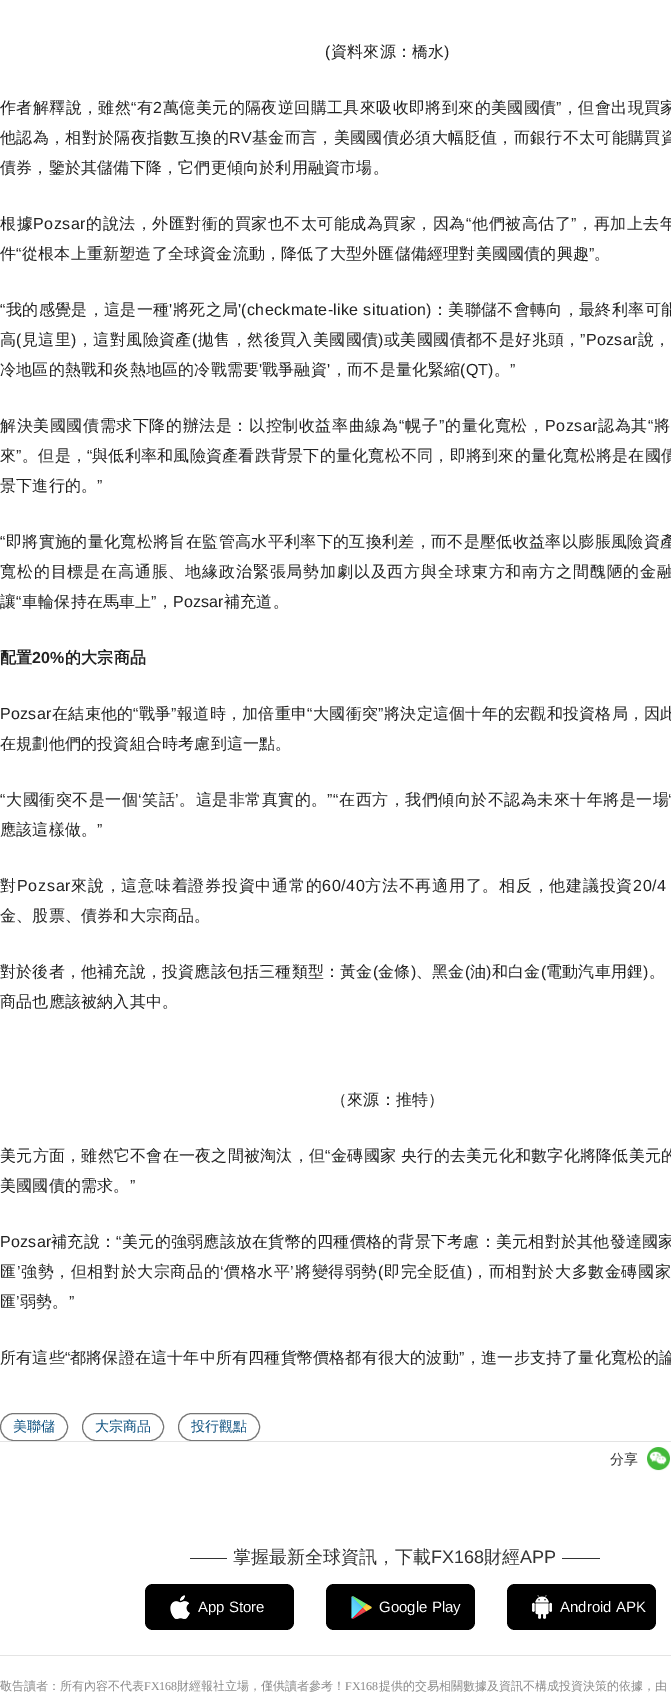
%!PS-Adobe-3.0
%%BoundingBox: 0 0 671 1701
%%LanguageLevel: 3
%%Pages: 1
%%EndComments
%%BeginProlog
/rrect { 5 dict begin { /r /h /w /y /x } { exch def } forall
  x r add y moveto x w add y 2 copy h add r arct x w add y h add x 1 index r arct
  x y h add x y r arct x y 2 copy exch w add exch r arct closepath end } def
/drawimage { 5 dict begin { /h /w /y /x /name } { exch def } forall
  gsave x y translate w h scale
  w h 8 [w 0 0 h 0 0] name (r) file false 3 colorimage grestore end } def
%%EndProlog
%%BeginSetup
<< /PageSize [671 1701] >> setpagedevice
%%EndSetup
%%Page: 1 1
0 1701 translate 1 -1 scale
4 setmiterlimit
1 setgray
0 0 671 1701 rectfill
0.459 setgray
0.5 1413.5 67 27 13.5 rrect stroke
82.5 1413.5 81 27 13.5 rrect stroke
178.5 1413.5 81 27 13.5 rrect stroke
0.89 setgray
0 1441 671 1 rectfill
(images/1.raw) 647 1447 23 24 drawimage
0.2 setgray
190 1558 410 1 rectfill
1 setgray
227 1558 335 1 rectfill
0 setgray
145 1584 149 46 8 rrect fill
(images/2.raw) 170 1595 20 24 drawimage
326 1584 149 46 8 rrect fill
(images/3.raw) 351 1596 21 23 drawimage
507 1584 149 46 8 rrect fill
(images/4.raw) 532 1595 20 24 drawimage
0.894 setgray
0 1655 671 1 rectfill
/LiberationSans-Regular [16 0 0 -16 0 0] selectfont
0.133 setgray
325 57 moveto 0.2 0 (\() ashow
/WenQuanYiZenHei-Medium [16 0 0 -16 0 0] selectfont
331 57 moveto 0.2 0 (資料來源：橋水) ashow
/LiberationSans-Regular [16 0 0 -16 0 0] selectfont
444 57 moveto 0.2 0 (\)) ashow
/WenQuanYiZenHei-Medium [16 0 0 -16 0 0] selectfont
0 113 moveto 0.4 0 (作者解釋說，雖然) ashow
/LiberationSans-Regular [16 0 0 -16 0 0] selectfont
131 113 moveto 0.4 0 (“) ashow
/WenQuanYiZenHei-Medium [16 0 0 -16 0 0] selectfont
137 113 moveto 0.4 0 (有) ashow
/LiberationSans-Regular [16 0 0 -16 0 0] selectfont
153 113 moveto 0.4 0 (2) ashow
/WenQuanYiZenHei-Medium [16 0 0 -16 0 0] selectfont
163 113 moveto 0.4 0 (萬億美元的隔夜逆回購工具來吸收即將到來的美國國債) ashow
/LiberationSans-Regular [16 0 0 -16 0 0] selectfont
556 113 moveto 0.4 0 (”) ashow
/WenQuanYiZenHei-Medium [16 0 0 -16 0 0] selectfont
562 113 moveto 0.4 0 (，但會出現買家) ashow
0 143 moveto 0.35 0 (他認為，相對於隔夜指數互換的) ashow
/LiberationSans-Regular [16 0 0 -16 0 0] selectfont
229 143 moveto 0.35 0 (RV) ashow
/WenQuanYiZenHei-Medium [16 0 0 -16 0 0] selectfont
252 143 moveto 0.35 0 (基金而言，美國國債必須大幅貶值，而銀行不太可能購買資) ashow
0 173 moveto 0.2 0 (債券，鑒於其儲備下降，它們更傾向於利用融資市場。) ashow
0 229 moveto 0.5 0 (根據) ashow
/LiberationSans-Regular [16 0 0 -16 0 0] selectfont
33 229 moveto 0.5 0 (Pozsar) ashow
/WenQuanYiZenHei-Medium [16 0 0 -16 0 0] selectfont
86 229 moveto 0.5 0 (的說法，外匯對衝的買家也不太可能成為買家，因為) ashow
/LiberationSans-Regular [16 0 0 -16 0 0] selectfont
466 229 moveto 0.5 0 (“) ashow
/WenQuanYiZenHei-Medium [16 0 0 -16 0 0] selectfont
472 229 moveto 0.5 0 (他們被高估了) ashow
/LiberationSans-Regular [16 0 0 -16 0 0] selectfont
571 229 moveto 0.5 0 (”) ashow
/WenQuanYiZenHei-Medium [16 0 0 -16 0 0] selectfont
577 229 moveto 0.5 0 (，再加上去年) ashow
0 259 moveto 0.2 0 (件) ashow
/LiberationSans-Regular [16 0 0 -16 0 0] selectfont
16 259 moveto 0.2 0 (“) ashow
/WenQuanYiZenHei-Medium [16 0 0 -16 0 0] selectfont
22 259 moveto 0.2 0 (從根本上重新塑造了全球資金流動，降低了大型外匯儲備經理對美國國債的興趣) ashow
/LiberationSans-Regular [16 0 0 -16 0 0] selectfont
589 259 moveto 0.2 0 (”) ashow
/WenQuanYiZenHei-Medium [16 0 0 -16 0 0] selectfont
594 259 moveto 0.2 0 (。) ashow
/LiberationSans-Regular [16 0 0 -16 0 0] selectfont
0 315 moveto 0.35 0 (“) ashow
/WenQuanYiZenHei-Medium [16 0 0 -16 0 0] selectfont
6 315 moveto 0.35 0 (我的感覺是，這是一種) ashow
/LiberationSans-Regular [16 0 0 -16 0 0] selectfont
169 315 moveto 0.35 0 (') ashow
/WenQuanYiZenHei-Medium [16 0 0 -16 0 0] selectfont
173 315 moveto 0.35 0 (將死之局) ashow
/LiberationSans-Regular [16 0 0 -16 0 0] selectfont
238 315 moveto 0.35 0 ('\(checkmate-like situation\)) ashow
/WenQuanYiZenHei-Medium [16 0 0 -16 0 0] selectfont
432 315 moveto 0.35 0 (：美聯儲不會轉向，最終利率可能) ashow
0 345 moveto 0.4 0 (高) ashow
/LiberationSans-Regular [16 0 0 -16 0 0] selectfont
16 345 moveto 0.4 0 (\() ashow
/WenQuanYiZenHei-Medium [16 0 0 -16 0 0] selectfont
22 345 moveto 0.4 0 (見這里) ashow
/LiberationSans-Regular [16 0 0 -16 0 0] selectfont
71 345 moveto 0.4 0 (\)) ashow
/WenQuanYiZenHei-Medium [16 0 0 -16 0 0] selectfont
77 345 moveto 0.4 0 (，這對風險資產) ashow
/LiberationSans-Regular [16 0 0 -16 0 0] selectfont
192 345 moveto 0.4 0 (\() ashow
/WenQuanYiZenHei-Medium [16 0 0 -16 0 0] selectfont
198 345 moveto 0.4 0 (拋售，然後買入美國國債) ashow
/LiberationSans-Regular [16 0 0 -16 0 0] selectfont
378 345 moveto 0.4 0 (\)) ashow
/WenQuanYiZenHei-Medium [16 0 0 -16 0 0] selectfont
384 345 moveto 0.4 0 (或美國國債都不是好兆頭，) ashow
/LiberationSans-Regular [16 0 0 -16 0 0] selectfont
580 345 moveto 0.4 0 (”Pozsar) ashow
/WenQuanYiZenHei-Medium [16 0 0 -16 0 0] selectfont
638 345 moveto 0.4 0 (說，) ashow
0 375 moveto 0.2 0 (冷地區的熱戰和炎熱地區的冷戰需要) ashow
/LiberationSans-Regular [16 0 0 -16 0 0] selectfont
259 375 moveto 0.2 0 (') ashow
/WenQuanYiZenHei-Medium [16 0 0 -16 0 0] selectfont
262 375 moveto 0.2 0 (戰爭融資) ashow
/LiberationSans-Regular [16 0 0 -16 0 0] selectfont
327 375 moveto 0.2 0 (') ashow
/WenQuanYiZenHei-Medium [16 0 0 -16 0 0] selectfont
331 375 moveto 0.2 0 (，而不是量化緊縮) ashow
/LiberationSans-Regular [16 0 0 -16 0 0] selectfont
460 375 moveto 0.2 0 (\(QT\)) ashow
510 375 moveto 0.2 0 (”) ashow
/WenQuanYiZenHei-Medium [16 0 0 -16 0 0] selectfont
494 375 moveto 0.2 0 (。) ashow
0 431 moveto 0.6 0 (解決美國國債需求下降的辦法是：以控制收益率曲線為) ashow
/LiberationSans-Regular [16 0 0 -16 0 0] selectfont
399 431 moveto 0.6 0 (“) ashow
/WenQuanYiZenHei-Medium [16 0 0 -16 0 0] selectfont
405 431 moveto 0.6 0 (幌子) ashow
/LiberationSans-Regular [16 0 0 -16 0 0] selectfont
439 431 moveto 0.6 0 (”) ashow
/WenQuanYiZenHei-Medium [16 0 0 -16 0 0] selectfont
445 431 moveto 0.6 0 (的量化寬松，) ashow
/LiberationSans-Regular [16 0 0 -16 0 0] selectfont
545 431 moveto 0.6 0 (Pozsar) ashow
/WenQuanYiZenHei-Medium [16 0 0 -16 0 0] selectfont
598 431 moveto 0.6 0 (認為其) ashow
/LiberationSans-Regular [16 0 0 -16 0 0] selectfont
648 431 moveto 0.6 0 (“) ashow
/WenQuanYiZenHei-Medium [16 0 0 -16 0 0] selectfont
654 431 moveto 0.6 0 (將) ashow
0 461 moveto 0.25 0 (來) ashow
/LiberationSans-Regular [16 0 0 -16 0 0] selectfont
16 461 moveto 0.25 0 (”) ashow
/WenQuanYiZenHei-Medium [16 0 0 -16 0 0] selectfont
22 461 moveto 0.25 0 (。但是，) ashow
/LiberationSans-Regular [16 0 0 -16 0 0] selectfont
87 461 moveto 0.25 0 (“) ashow
/WenQuanYiZenHei-Medium [16 0 0 -16 0 0] selectfont
92 461 moveto 0.25 0 (與低利率和風險資產看跌背景下的量化寬松不同，即將到來的量化寬松將是在國債) ashow
0 491 moveto 0.2 0 (景下進行的。) ashow
/LiberationSans-Regular [16 0 0 -16 0 0] selectfont
97 491 moveto 0.2 0 (”) ashow
0 547 moveto 0.35 0 (“) ashow
/WenQuanYiZenHei-Medium [16 0 0 -16 0 0] selectfont
6 547 moveto 0.35 0 (即將實施的量化寬松將旨在監管高水平利率下的互換利差，而不是壓低收益率以膨脹風險資產) ashow
0 577 moveto 0.85 0 (寬松的目標是在高通脹、地緣政治緊張局勢加劇以及西方與全球東方和南方之間醜陋的金融) ashow
0 607 moveto 0.2 0 (讓) ashow
/LiberationSans-Regular [16 0 0 -16 0 0] selectfont
16 607 moveto 0.2 0 (“) ashow
/WenQuanYiZenHei-Medium [16 0 0 -16 0 0] selectfont
22 607 moveto 0.2 0 (車輪保持在馬車上) ashow
/LiberationSans-Regular [16 0 0 -16 0 0] selectfont
151 607 moveto 0.2 0 (”) ashow
/WenQuanYiZenHei-Medium [16 0 0 -16 0 0] selectfont
157 607 moveto 0.2 0 (，) ashow
/LiberationSans-Regular [16 0 0 -16 0 0] selectfont
173 607 moveto 0.2 0 (Pozsar) ashow
/WenQuanYiZenHei-Medium [16 0 0 -16 0 0] selectfont
224 607 moveto 0.2 0 (補充道。) ashow
/WenQuanYiZenHei-Bold [16 0 0 -16 0 0] selectfont
0 663 moveto 0.2 0 (配置) ashow
/LiberationSans-Bold [16 0 0 -16 0 0] selectfont
32 663 moveto 0.2 0 (20%) ashow
/WenQuanYiZenHei-Bold [16 0 0 -16 0 0] selectfont
65 663 moveto 0.2 0 (的大宗商品) ashow
/LiberationSans-Regular [16 0 0 -16 0 0] selectfont
0 719 moveto 0.25 0 (Pozsar) ashow
/WenQuanYiZenHei-Medium [16 0 0 -16 0 0] selectfont
52 719 moveto 0.25 0 (在結束他的) ashow
/LiberationSans-Regular [16 0 0 -16 0 0] selectfont
133 719 moveto 0.25 0 (“) ashow
/WenQuanYiZenHei-Medium [16 0 0 -16 0 0] selectfont
139 719 moveto 0.25 0 (戰爭) ashow
/LiberationSans-Regular [16 0 0 -16 0 0] selectfont
171 719 moveto 0.25 0 (”) ashow
/WenQuanYiZenHei-Medium [16 0 0 -16 0 0] selectfont
177 719 moveto 0.25 0 (報道時，加倍重申) ashow
/LiberationSans-Regular [16 0 0 -16 0 0] selectfont
307 719 moveto 0.25 0 (“) ashow
/WenQuanYiZenHei-Medium [16 0 0 -16 0 0] selectfont
313 719 moveto 0.25 0 (大國衝突) ashow
/LiberationSans-Regular [16 0 0 -16 0 0] selectfont
378 719 moveto 0.25 0 (”) ashow
/WenQuanYiZenHei-Medium [16 0 0 -16 0 0] selectfont
384 719 moveto 0.25 0 (將決定這個十年的宏觀和投資格局，因此) ashow
0 749 moveto 0.2 0 (在規劃他們的投資組合時考慮到這一點。) ashow
/LiberationSans-Regular [16 0 0 -16 0 0] selectfont
0 805 moveto 0.5 0 (“) ashow
/WenQuanYiZenHei-Medium [16 0 0 -16 0 0] selectfont
6 805 moveto 0.5 0 (大國衝突不是一個) ashow
/LiberationSans-Regular [16 0 0 -16 0 0] selectfont
138 805 moveto 0.5 0 (‘) ashow
/WenQuanYiZenHei-Medium [16 0 0 -16 0 0] selectfont
142 805 moveto 0.5 0 (笑話) ashow
/LiberationSans-Regular [16 0 0 -16 0 0] selectfont
175 805 moveto 0.5 0 (’) ashow
/WenQuanYiZenHei-Medium [16 0 0 -16 0 0] selectfont
179 805 moveto 0.5 0 (。這是非常真實的。) ashow
/LiberationSans-Regular [16 0 0 -16 0 0] selectfont
327 805 moveto 0.5 0 (”“) ashow
/WenQuanYiZenHei-Medium [16 0 0 -16 0 0] selectfont
339 805 moveto 0.5 0 (在西方，我們傾向於不認為未來十年將是一場) ashow
/LiberationSans-Regular [16 0 0 -16 0 0] selectfont
668 805 moveto 0.5 0 (‘) ashow
/WenQuanYiZenHei-Medium [16 0 0 -16 0 0] selectfont
0 835 moveto 0.2 0 (應該這樣做。) ashow
/LiberationSans-Regular [16 0 0 -16 0 0] selectfont
97 835 moveto 0.2 0 (”) ashow
/WenQuanYiZenHei-Medium [16 0 0 -16 0 0] selectfont
0 891 moveto 0.75 0 (對) ashow
/LiberationSans-Regular [16 0 0 -16 0 0] selectfont
17 891 moveto 0.75 0 (Pozsar) ashow
/WenQuanYiZenHei-Medium [16 0 0 -16 0 0] selectfont
71 891 moveto 0.75 0 (來說，這意味着證券投資中通常的) ashow
/LiberationSans-Regular [16 0 0 -16 0 0] selectfont
322 891 moveto 0.75 0 (60/40) ashow
/WenQuanYiZenHei-Medium [16 0 0 -16 0 0] selectfont
365 891 moveto 0.75 0 (方法不再適用了。相反，他建議投資) ashow
/LiberationSans-Regular [16 0 0 -16 0 0] selectfont
633 891 moveto 0.75 0 (20/4) ashow
/WenQuanYiZenHei-Medium [16 0 0 -16 0 0] selectfont
0 921 moveto 0.2 0 (金、股票、債券和大宗商品。) ashow
0 977 moveto 0.2 0 (對於後者，他補充說，投資應該包括三種類型：黃金) ashow
/LiberationSans-Regular [16 0 0 -16 0 0] selectfont
373 977 moveto 0.2 0 (\() ashow
/WenQuanYiZenHei-Medium [16 0 0 -16 0 0] selectfont
378 977 moveto 0.2 0 (金條) ashow
/LiberationSans-Regular [16 0 0 -16 0 0] selectfont
411 977 moveto 0.2 0 (\)) ashow
/WenQuanYiZenHei-Medium [16 0 0 -16 0 0] selectfont
416 977 moveto 0.2 0 (、黑金) ashow
/LiberationSans-Regular [16 0 0 -16 0 0] selectfont
465 977 moveto 0.2 0 (\() ashow
/WenQuanYiZenHei-Medium [16 0 0 -16 0 0] selectfont
470 977 moveto 0.2 0 (油) ashow
/LiberationSans-Regular [16 0 0 -16 0 0] selectfont
486 977 moveto 0.2 0 (\)) ashow
/WenQuanYiZenHei-Medium [16 0 0 -16 0 0] selectfont
492 977 moveto 0.2 0 (和白金) ashow
/LiberationSans-Regular [16 0 0 -16 0 0] selectfont
541 977 moveto 0.2 0 (\() ashow
/WenQuanYiZenHei-Medium [16 0 0 -16 0 0] selectfont
546 977 moveto 0.2 0 (電動汽車用鋰) ashow
/LiberationSans-Regular [16 0 0 -16 0 0] selectfont
643 977 moveto 0.2 0 (\)) ashow
/WenQuanYiZenHei-Medium [16 0 0 -16 0 0] selectfont
649 977 moveto 0.2 0 (。) ashow
0 1007 moveto 0.2 0 (商品也應該被納入其中。) ashow
331 1105 moveto 0.2 0 (（來源：推特）) ashow
0 1161 moveto 0.25 0 (美元方面，雖然它不會在一夜之間被淘汰，但) ashow
/LiberationSans-Regular [16 0 0 -16 0 0] selectfont
325 1161 moveto 0.25 0 (“) ashow
/WenQuanYiZenHei-Medium [16 0 0 -16 0 0] selectfont
331 1161 moveto 0.25 0 (金磚國家 央行的去美元化和數字化將降低美元的) ashow
0 1191 moveto 0.2 0 (美國國債的需求。) ashow
/LiberationSans-Regular [16 0 0 -16 0 0] selectfont
130 1191 moveto 0.2 0 (”) ashow
0 1247 moveto 0.25 0 (Pozsar) ashow
/WenQuanYiZenHei-Medium [16 0 0 -16 0 0] selectfont
51 1247 moveto 0.25 0 (補充說：) ashow
/LiberationSans-Regular [16 0 0 -16 0 0] selectfont
116 1247 moveto 0.25 0 (“) ashow
/WenQuanYiZenHei-Medium [16 0 0 -16 0 0] selectfont
122 1247 moveto 0.25 0 (美元的強弱應該放在貨幣的四種價格的背景下考慮：美元相對於其他發達國家) ashow
0 1277 moveto 0.6 0 (匯) ashow
/LiberationSans-Regular [16 0 0 -16 0 0] selectfont
17 1277 moveto 0.6 0 (’) ashow
/WenQuanYiZenHei-Medium [16 0 0 -16 0 0] selectfont
21 1277 moveto 0.6 0 (強勢，但相對於大宗商品的) ashow
/LiberationSans-Regular [16 0 0 -16 0 0] selectfont
220 1277 moveto 0.6 0 (‘) ashow
/WenQuanYiZenHei-Medium [16 0 0 -16 0 0] selectfont
224 1277 moveto 0.6 0 (價格水平) ashow
/LiberationSans-Regular [16 0 0 -16 0 0] selectfont
290 1277 moveto 0.6 0 (’) ashow
/WenQuanYiZenHei-Medium [16 0 0 -16 0 0] selectfont
295 1277 moveto 0.6 0 (將變得弱勢) ashow
/LiberationSans-Regular [16 0 0 -16 0 0] selectfont
378 1277 moveto 0.6 0 (\() ashow
/WenQuanYiZenHei-Medium [16 0 0 -16 0 0] selectfont
384 1277 moveto 0.6 0 (即完全貶值) ashow
/LiberationSans-Regular [16 0 0 -16 0 0] selectfont
467 1277 moveto 0.6 0 (\)) ashow
/WenQuanYiZenHei-Medium [16 0 0 -16 0 0] selectfont
472 1277 moveto 0.6 0 (，而相對於大多數金磚國家) ashow
0 1307 moveto 0.2 0 (匯) ashow
/LiberationSans-Regular [16 0 0 -16 0 0] selectfont
16 1307 moveto 0.2 0 (’) ashow
/WenQuanYiZenHei-Medium [16 0 0 -16 0 0] selectfont
20 1307 moveto 0.2 0 (弱勢。) ashow
/LiberationSans-Regular [16 0 0 -16 0 0] selectfont
69 1307 moveto 0.2 0 (”) ashow
/WenQuanYiZenHei-Medium [16 0 0 -16 0 0] selectfont
0 1363 moveto 0.2 0 (所有這些) ashow
/LiberationSans-Regular [16 0 0 -16 0 0] selectfont
65 1363 moveto 0.2 0 (“) ashow
/WenQuanYiZenHei-Medium [16 0 0 -16 0 0] selectfont
70 1363 moveto 0.2 0 (都將保證在這十年中所有四種貨幣價格都有很大的波動) ashow
/LiberationSans-Regular [16 0 0 -16 0 0] selectfont
459 1363 moveto 0.2 0 (”) ashow
/WenQuanYiZenHei-Medium [16 0 0 -16 0 0] selectfont
465 1363 moveto 0.2 0 (，進一步支持了量化寬松的論) ashow
/WenQuanYiZenHei-Medium [14 0 0 -14 0 0] selectfont
0.051 0.318 0.502 setrgbcolor
13 1431 moveto (美聯儲) show
95 1431 moveto (大宗商品) show
191 1431 moveto (投行觀點) show
0.2 setgray
610 1464 moveto (分享) show
/WenQuanYiZenHei-Medium [18 0 0 -18 0 0] selectfont
233 1563 moveto (掌握最新全球資訊，下載) show
/LiberationSans-Regular [18 0 0 -18 0 0] selectfont
431 1563 moveto (FX168) show
/WenQuanYiZenHei-Medium [18 0 0 -18 0 0] selectfont
484 1563 moveto (財經) show
/LiberationSans-Regular [18 0 0 -18 0 0] selectfont
520 1563 moveto (APP) show
/LiberationSans-Regular [15 0 0 -15 0 0] selectfont
1 setgray
198 1612 moveto (App Store) show
379 1612 moveto (Google Play) show
560 1612 moveto (Android APK) show
/WenQuanYiZenHei-Medium [12 0 0 -12 0 0] selectfont
0.533 setgray
0 1690 moveto (敬告讀者：所有內容不代表) show
/LiberationSerif-Regular [12 0 0 -12 0 0] selectfont
144 1690 moveto (FX168) show
/WenQuanYiZenHei-Medium [12 0 0 -12 0 0] selectfont
177 1690 moveto (財經報社立場，僅供讀者參考！) show
/LiberationSerif-Regular [12 0 0 -12 0 0] selectfont
345 1690 moveto (FX168) show
/WenQuanYiZenHei-Medium [12 0 0 -12 0 0] selectfont
379 1690 moveto (提供的交易相關數據及資訊不構成投資決策的依據，由) show
showpage
%%EOF
